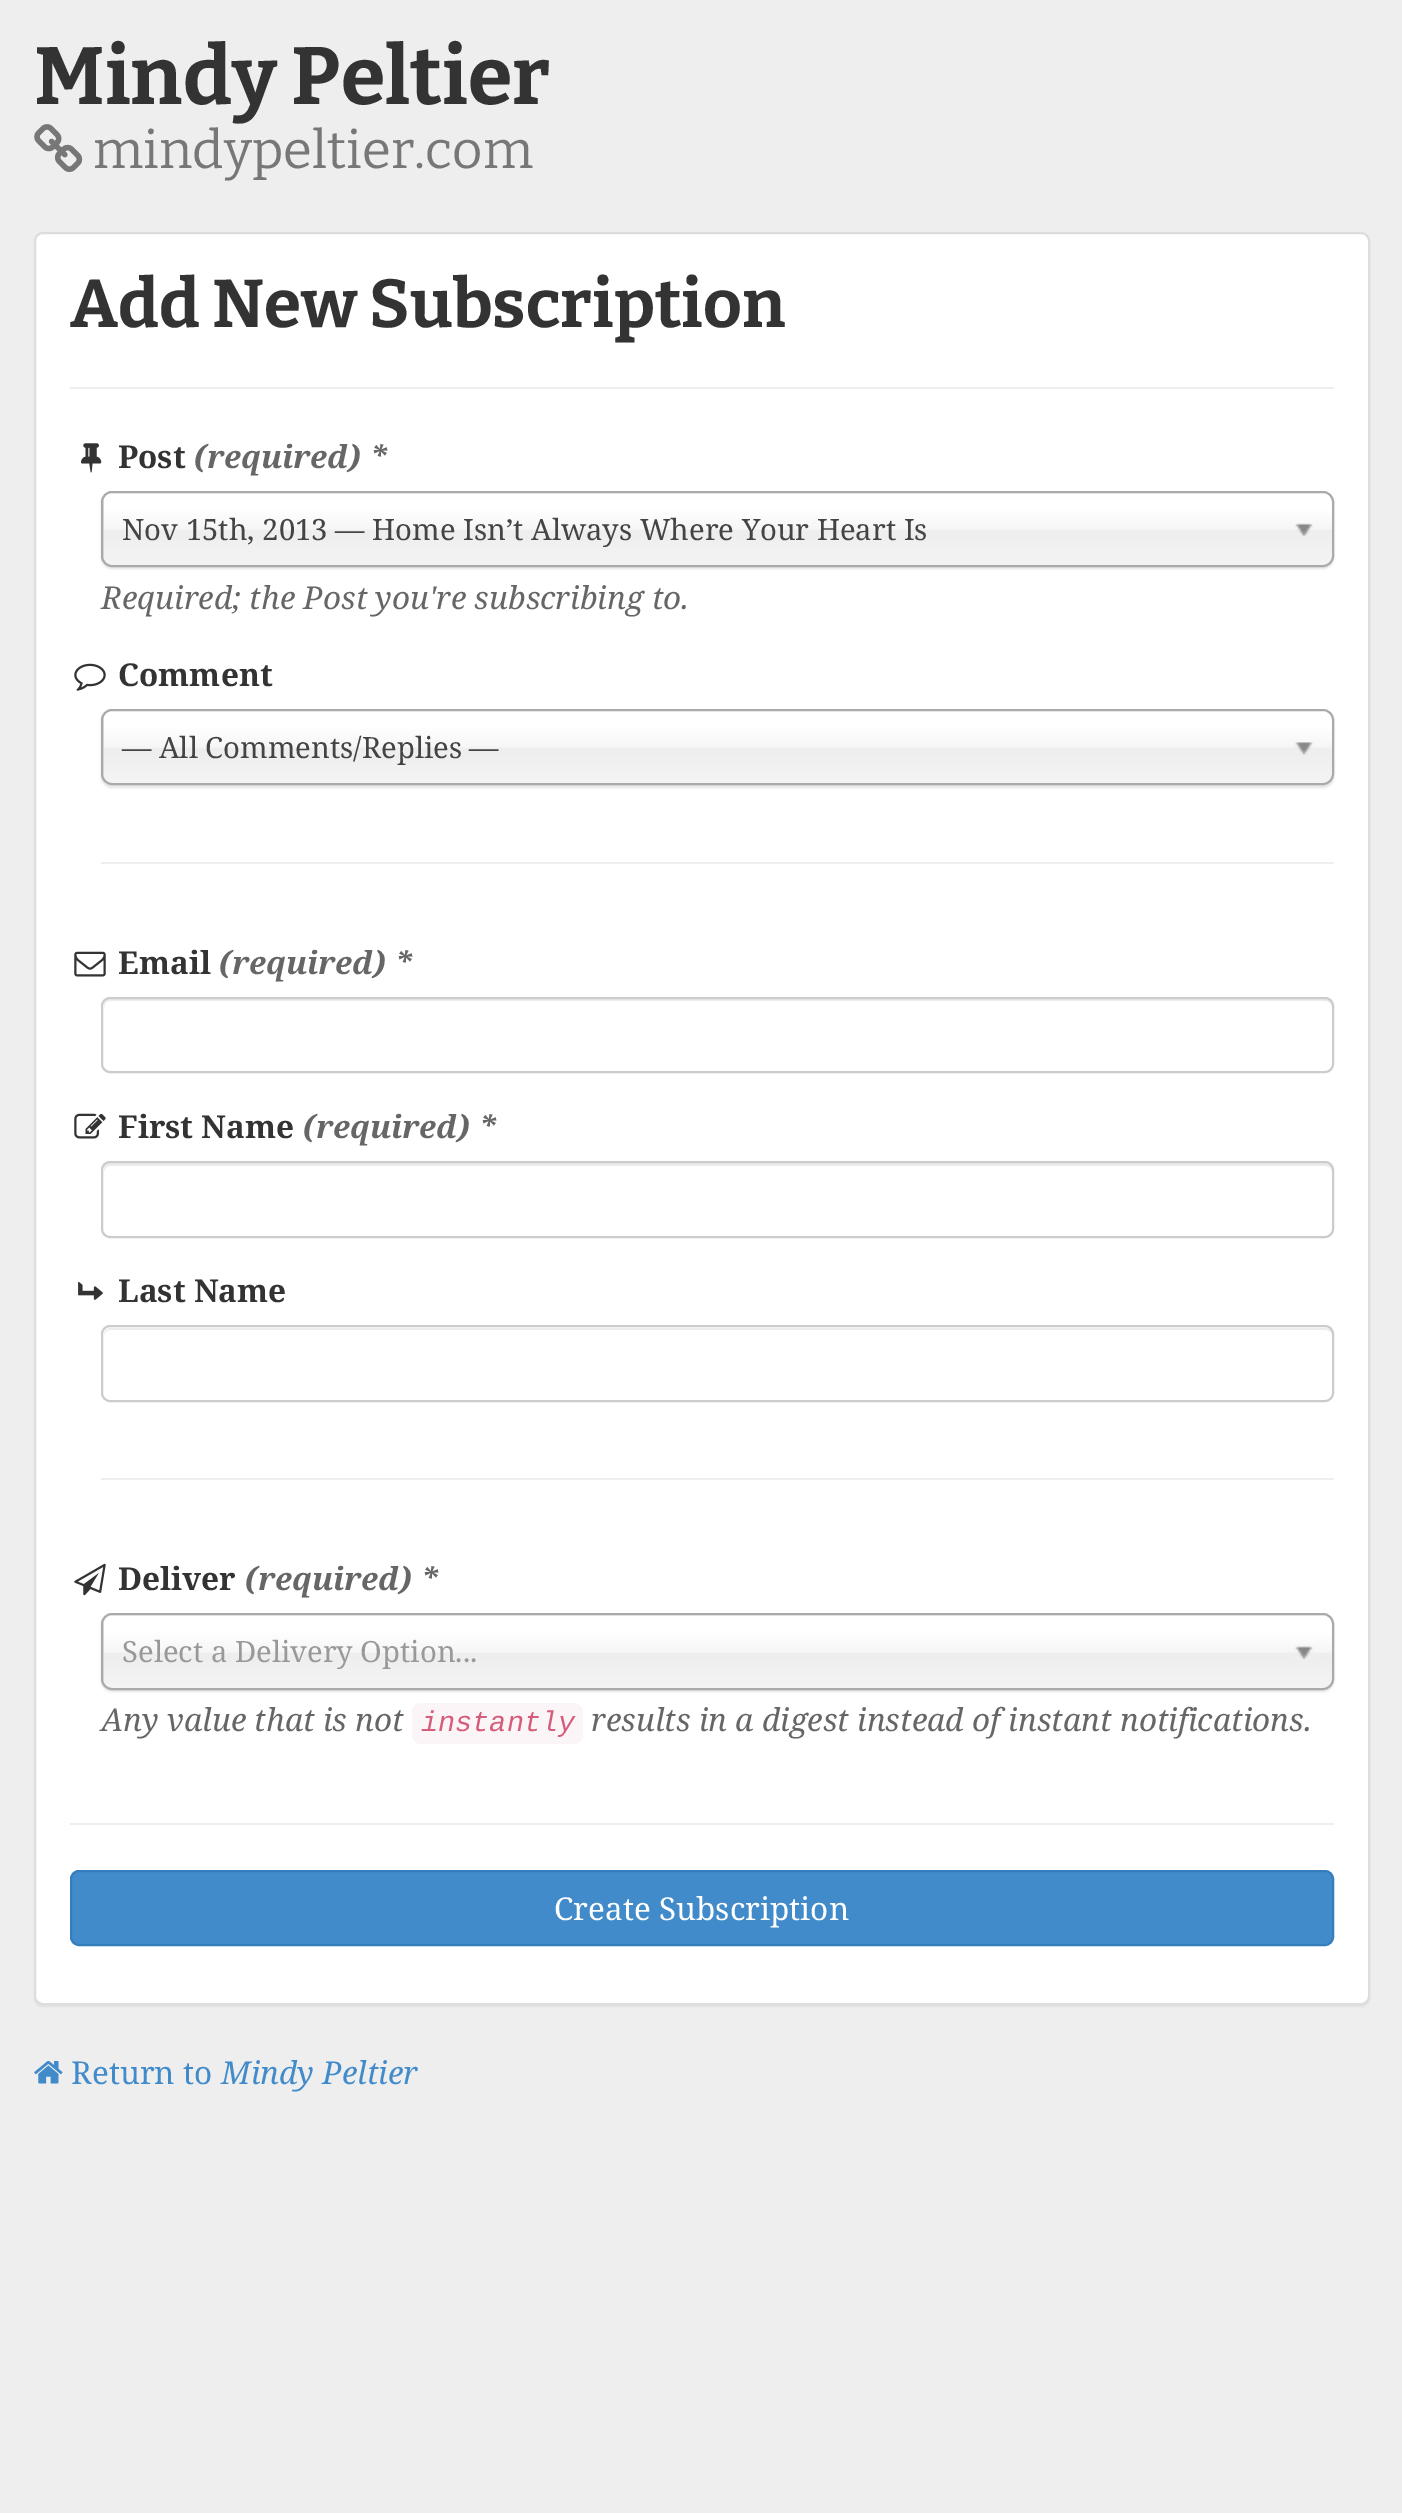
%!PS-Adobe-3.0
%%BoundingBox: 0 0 1402 2513
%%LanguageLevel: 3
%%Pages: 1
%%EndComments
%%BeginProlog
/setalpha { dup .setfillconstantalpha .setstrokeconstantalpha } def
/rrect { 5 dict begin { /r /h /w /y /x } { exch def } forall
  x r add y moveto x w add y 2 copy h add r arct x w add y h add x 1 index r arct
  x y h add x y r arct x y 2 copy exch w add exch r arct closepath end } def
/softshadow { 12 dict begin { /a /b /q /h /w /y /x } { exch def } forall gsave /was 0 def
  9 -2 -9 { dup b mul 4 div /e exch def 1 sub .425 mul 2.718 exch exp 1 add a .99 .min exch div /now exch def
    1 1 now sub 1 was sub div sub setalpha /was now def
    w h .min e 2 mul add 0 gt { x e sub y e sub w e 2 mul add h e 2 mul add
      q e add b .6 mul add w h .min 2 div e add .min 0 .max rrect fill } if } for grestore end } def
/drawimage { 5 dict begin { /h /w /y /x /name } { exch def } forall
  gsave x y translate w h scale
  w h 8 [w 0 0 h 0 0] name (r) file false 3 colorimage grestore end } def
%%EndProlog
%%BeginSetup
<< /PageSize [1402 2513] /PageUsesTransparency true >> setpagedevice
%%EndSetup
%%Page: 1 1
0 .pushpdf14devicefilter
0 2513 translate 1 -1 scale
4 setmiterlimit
0.933 setgray
0 0 1402 2513 rectfill
(images/1.raw) 34 124 49 48 drawimage
0 setgray
34 234 1336 1773 9 1 0.05 softshadow
1 setgray
35 233 1334 1771 8 rrect gsave fill grestore
0.867 setgray
2 setlinewidth
stroke
0.933 setgray
70 387 1264 2 rectfill
(images/2.raw) 81 443 21 30 drawimage
0 setgray
101 493 1233 76 11 1 0.1 softshadow
gsave 104 493 1228 72 9 rrect clip newpath
<< /ShadingType 2 /ColorSpace /DeviceRGB /Coords [718 493 718 565] /Extend [true true] /Function << /FunctionType 3 /Domain [0 1] /Functions [<< /FunctionType 2 /Domain [0 1] /C0 [1 1 1] /C1 [1 1 1] /N 1 >> << /FunctionType 2 /Domain [0 1] /C0 [1 1 1] /C1 [0.965 0.965 0.965] /N 1 >> << /FunctionType 2 /Domain [0 1] /C0 [0.965 0.965 0.965] /C1 [0.933 0.933 0.933] /N 1 >> << /FunctionType 2 /Domain [0 1] /C0 [0.933 0.933 0.933] /C1 [0.957 0.957 0.957] /N 1 >>] /Bounds [0.2 0.5 0.52] /Encode [0 1 0 1 0 1 0 1] >> >> shfill grestore
0.667 setgray
102 492 1231 74 10 rrect stroke
(images/3.raw) 1295 523 18 14 drawimage
(images/4.raw) 74 663 32 28 drawimage
0 setgray
101 711 1233 77 11 1 0.1 softshadow
gsave 104 711 1228 72 9 rrect clip newpath
<< /ShadingType 2 /ColorSpace /DeviceRGB /Coords [718 711 718 783] /Extend [true true] /Function << /FunctionType 3 /Domain [0 1] /Functions [<< /FunctionType 2 /Domain [0 1] /C0 [1 1 1] /C1 [1 1 1] /N 1 >> << /FunctionType 2 /Domain [0 1] /C0 [1 1 1] /C1 [0.965 0.965 0.965] /N 1 >> << /FunctionType 2 /Domain [0 1] /C0 [0.965 0.965 0.965] /C1 [0.933 0.933 0.933] /N 1 >> << /FunctionType 2 /Domain [0 1] /C0 [0.933 0.933 0.933] /C1 [0.957 0.957 0.957] /N 1 >>] /Bounds [0.2 0.5 0.52] /Encode [0 1 0 1 0 1 0 1] >> >> shfill grestore
0.667 setgray
102 710 1231 74 10 rrect stroke
(images/5.raw) 1295 742 18 13 drawimage
0.933 setgray
101 862 1233 2 rectfill
(images/6.raw) 74 951 32 26 drawimage
0.925 setgray
newpath 110 1001 moveto 1325 1001 lineto 1329 1001 1332 1004 1332 1008 curveto 1332 1006 lineto 1332 1002 1329 999 1325 999 curveto 111 999 lineto 107 999 104 1002 104 1006 curveto 104 1008 lineto 104 1004 107 1001 110 1001 curveto closepath fill
0.8 setgray
102 998 1231 74 8 rrect stroke
(images/7.raw) 74 1113 32 26 drawimage
0.925 setgray
newpath 110 1166 moveto 1325 1166 lineto 1329 1166 1332 1169 1332 1172 curveto 1332 1170 lineto 1332 1166 1329 1163 1325 1163 curveto 111 1163 lineto 107 1163 104 1166 104 1170 curveto 104 1172 lineto 104 1169 107 1166 110 1166 curveto closepath fill
0.8 setgray
102 1162 1231 75 8 rrect stroke
(images/8.raw) 78 1281 25 19 drawimage
0.925 setgray
newpath 110 1330 moveto 1325 1330 lineto 1329 1330 1332 1333 1332 1336 curveto 1332 1332 1330 1328 1325 1328 curveto 111 1328 lineto 106 1328 104 1332 104 1336 curveto 104 1333 107 1330 110 1330 curveto closepath fill
0.8 setgray
102 1326 1231 75 8 rrect stroke
0.933 setgray
101 1478 1233 2 rectfill
(images/9.raw) 74 1563 32 33 drawimage
0 setgray
101 1616 1233 76 11 1 0.1 softshadow
gsave 104 1616 1228 72 9 rrect clip newpath
<< /ShadingType 2 /ColorSpace /DeviceRGB /Coords [718 1616 718 1688] /Extend [true true] /Function << /FunctionType 3 /Domain [0 1] /Functions [<< /FunctionType 2 /Domain [0 1] /C0 [1 1 1] /C1 [1 1 1] /N 1 >> << /FunctionType 2 /Domain [0 1] /C0 [1 1 1] /C1 [0.965 0.965 0.965] /N 1 >> << /FunctionType 2 /Domain [0 1] /C0 [0.965 0.965 0.965] /C1 [0.933 0.933 0.933] /N 1 >> << /FunctionType 2 /Domain [0 1] /C0 [0.933 0.933 0.933] /C1 [0.957 0.957 0.957] /N 1 >>] /Bounds [0.2 0.5 0.52] /Encode [0 1 0 1 0 1 0 1] >> >> shfill grestore
0.667 setgray
102 1614 1231 75 10 rrect stroke
(images/10.raw) 1295 1646 18 14 drawimage
0.984 0.961 0.969 setrgbcolor
412 1703 171 41 9 rrect fill
0.933 setgray
70 1823 1264 2 rectfill
0.259 0.545 0.792 setrgbcolor
71 1871 1262 74 8 rrect gsave fill grestore
0.208 0.494 0.741 setrgbcolor
stroke
(images/11.raw) 34 2061 29 23 drawimage
/Bitter-Bold [81 0 0 -81 0 0] selectfont
0.2 setgray
34 104 moveto (Mindy Peltier) show
/Bitter-Regular [52.75 0 0 -52.75 0 0] selectfont
0.467 setgray
93 168 moveto (mindypeltier.com) show
/Bitter-Bold [67.5 0 0 -67.5 0 0] selectfont
0.2 setgray
70 327 moveto (Add New Subscription) show
/NotoSerif-Bold [31.5 0 0 -31.5 0 0] selectfont
118 468 moveto (Post) show
/NotoSerif-BoldItalic [31.5 0 0 -31.5 0 0] selectfont
0.4 setgray
194 468 moveto (\(required\) *) show
/NotoSerif-Regular [29.25 0 0 -29.25 0 0] selectfont
0.267 setgray
122 540 moveto (Nov 15th, 2013 — Home Isn’t Always Where Your Heart Is) show
/NotoSerif-Italic [31.5 0 0 -31.5 0 0] selectfont
0.4 setgray
101 609 moveto (Required; the Post you're subscribing to.) show
/NotoSerif-Bold [31.5 0 0 -31.5 0 0] selectfont
0.2 setgray
118 686 moveto (Comment) show
/NotoSerif-Regular [29.25 0 0 -29.25 0 0] selectfont
0.267 setgray
122 758 moveto (— All Comments/Replies —) show
/NotoSerif-Bold [31.5 0 0 -31.5 0 0] selectfont
0.2 setgray
118 974 moveto (Email) show
/NotoSerif-BoldItalic [31.5 0 0 -31.5 0 0] selectfont
0.4 setgray
219 974 moveto (\(required\) *) show
/NotoSerif-Bold [31.5 0 0 -31.5 0 0] selectfont
0.2 setgray
118 1138 moveto (First Name) show
/NotoSerif-BoldItalic [31.5 0 0 -31.5 0 0] selectfont
0.4 setgray
303 1138 moveto (\(required\) *) show
/NotoSerif-Bold [31.5 0 0 -31.5 0 0] selectfont
0.2 setgray
118 1302 moveto (Last Name) show
118 1590 moveto (Deliver) show
/NotoSerif-BoldItalic [31.5 0 0 -31.5 0 0] selectfont
0.4 setgray
245 1590 moveto (\(required\) *) show
/NotoSerif-Regular [29.25 0 0 -29.25 0 0] selectfont
0.6 setgray
122 1662 moveto (Select a Delivery Option...) show
/NotoSerif-Italic [31.5 0 0 -31.5 0 0] selectfont
0.4 setgray
101 1731 moveto (Any value that is not) show
/LiberationMono-Italic [28.5 0 0 -28.5 0 0] selectfont
0.835 0.361 0.478 setrgbcolor
421 1731 moveto (instantly) show
/NotoSerif-Italic [31.5 0 0 -31.5 0 0] selectfont
0.4 setgray
591 1731 moveto (results in a digest instead of instant notifications.) show
/NotoSerif-Regular [31.5 0 0 -31.5 0 0] selectfont
1 setgray
554 1920 moveto (Create Subscription) show
0.259 0.545 0.792 setrgbcolor
71 2084 moveto (Return to) show
/NotoSerif-Italic [31.5 0 0 -31.5 0 0] selectfont
221 2084 moveto (Mindy Peltier) show
.poppdf14devicefilter showpage
%%EOF
